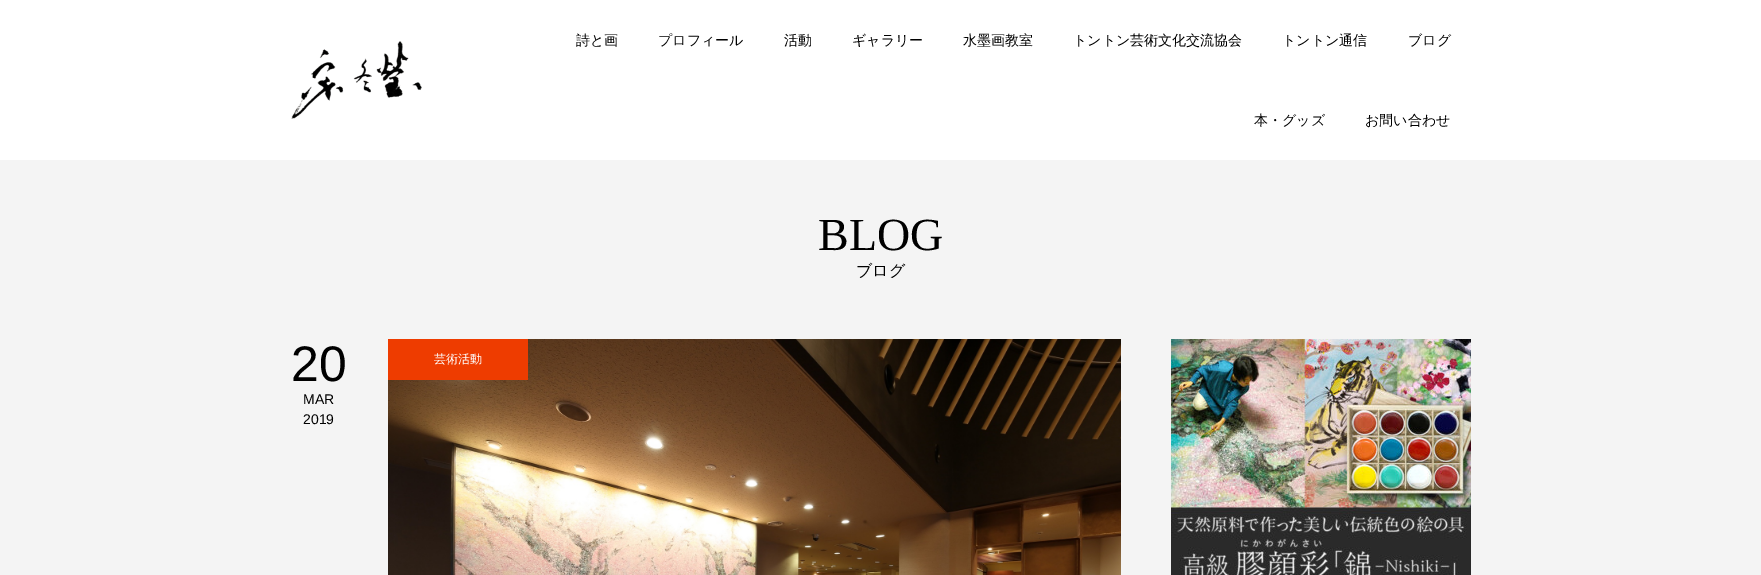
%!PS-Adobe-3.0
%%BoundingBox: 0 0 1761 575
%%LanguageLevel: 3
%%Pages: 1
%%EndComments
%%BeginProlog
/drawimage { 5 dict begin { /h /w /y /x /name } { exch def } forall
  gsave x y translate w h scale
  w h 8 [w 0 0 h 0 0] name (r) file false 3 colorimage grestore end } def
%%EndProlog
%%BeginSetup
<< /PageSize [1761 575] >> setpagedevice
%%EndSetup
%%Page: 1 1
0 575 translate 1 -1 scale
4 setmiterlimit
1 setgray
0 0 1761 575 rectfill
(images/1.raw) 291 41 131 78 drawimage
0.957 setgray
0 160 1761 415 rectfill
(images/2.raw) 388 339 733 236 drawimage
0.933 0.235 0 setrgbcolor
388 339 140 41 rectfill
(images/3.raw) 1171 339 300 236 drawimage
/WenQuanYiZenHei-Medium [14 0 0 -14 0 0] selectfont
0 setgray
576 45 moveto (詩と画) show
658 45 moveto (プロフィール) show
784 45 moveto (活動) show
852 45 moveto (ギャラリー) show
963 45 moveto (水墨画教室) show
1073 45 moveto (トントン芸術文化交流協会) show
1282 45 moveto (トントン通信) show
1408 45 moveto (ブログ) show
1254 125 moveto (本・グッズ) show
1365 125 moveto (お問い合わせ) show
/LiberationSerif-Regular [46 0 0 -46 0 0] selectfont
818 250 moveto (BLOG) show
/WenQuanYiZenHei-Medium [16 0 0 -16 0 0] selectfont
856 276 moveto (ブログ) show
/LiberationSans-Regular [50 0 0 -50 0 0] selectfont
291 381 moveto (20) show
/LiberationSans-Regular [14 0 0 -14 0 0] selectfont
303 404 moveto (MAR) show
303 424 moveto (2019) show
/WenQuanYiZenHei-Medium [12 0 0 -12 0 0] selectfont
1 setgray
434 363 moveto (芸術活動) show
showpage
%%EOF
